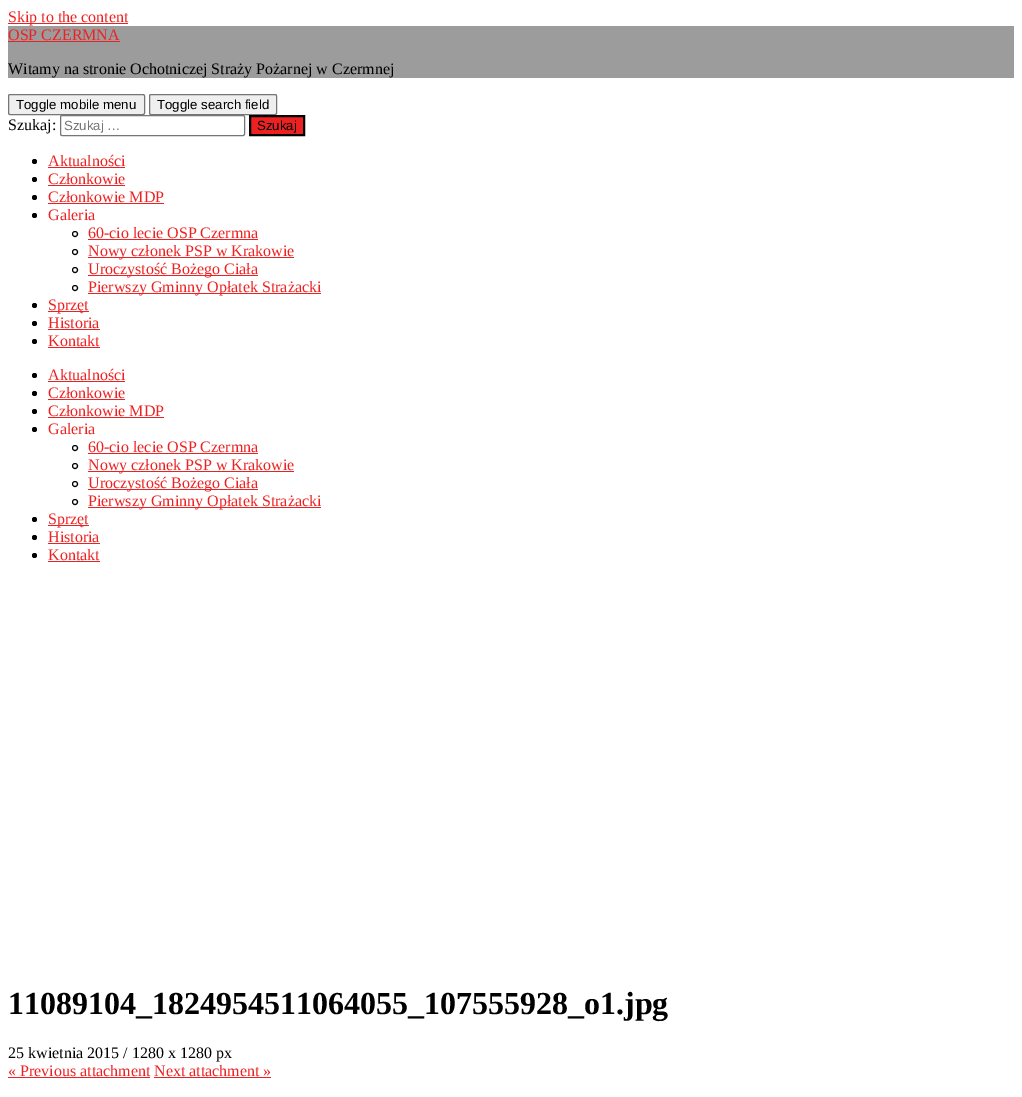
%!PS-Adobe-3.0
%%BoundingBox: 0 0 1022 1097
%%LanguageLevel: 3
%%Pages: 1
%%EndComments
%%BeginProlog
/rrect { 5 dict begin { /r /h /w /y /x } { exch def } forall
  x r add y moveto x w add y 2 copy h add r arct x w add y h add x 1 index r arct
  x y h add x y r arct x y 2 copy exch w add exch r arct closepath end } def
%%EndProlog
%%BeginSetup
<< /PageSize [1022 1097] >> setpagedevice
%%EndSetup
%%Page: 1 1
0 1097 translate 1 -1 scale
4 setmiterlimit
1 setgray
0 0 1022 1097 rectfill
0.929 0.129 0.129 setrgbcolor
8 23 120 1 rectfill
0.612 setgray
8 26 1006 52 rectfill
0.929 0.129 0.129 setrgbcolor
8 41 112 1 rectfill
0.937 setgray
8.5 94.5 136 20 1.5 rrect gsave fill grestore
0.463 setgray
stroke
0.937 setgray
149.5 94.5 127 20 1.5 rrect gsave fill grestore
0.463 setgray
stroke
60.5 115.5 184 20 1.5 rrect stroke
0.929 0.129 0.129 setrgbcolor
newpath 250 116 moveto 304 116 lineto 304 135 lineto 250 135 lineto closepath gsave fill grestore
0 setgray
2 setlinewidth
stroke
newpath 34.5 161.5 2.5 0 360 arc closepath fill
0.929 0.129 0.129 setrgbcolor
48 167 77 1 rectfill
0 setgray
newpath 34.5 179.5 2.5 0 360 arc closepath fill
0.929 0.129 0.129 setrgbcolor
48 185 77 1 rectfill
0 setgray
newpath 34.5 197.5 2.5 0 360 arc closepath fill
0.929 0.129 0.129 setrgbcolor
48 203 116 1 rectfill
0 setgray
newpath 34.5 215.5 2.5 0 360 arc closepath fill
1 setlinewidth
newpath 75 234 2.5 0 360 arc closepath stroke
0.929 0.129 0.129 setrgbcolor
88 239 170 1 rectfill
0 setgray
newpath 75 252 2.5 0 360 arc closepath stroke
0.929 0.129 0.129 setrgbcolor
88 257 206 1 rectfill
0 setgray
newpath 75 270 2.5 0 360 arc closepath stroke
0.929 0.129 0.129 setrgbcolor
88 275 170 1 rectfill
0 setgray
newpath 75 288 2.5 0 360 arc closepath stroke
0.929 0.129 0.129 setrgbcolor
88 293 233 1 rectfill
0 setgray
newpath 34.5 305.5 2.5 0 360 arc closepath fill
0.929 0.129 0.129 setrgbcolor
48 311 41 1 rectfill
0 setgray
newpath 34.5 323.5 2.5 0 360 arc closepath fill
0.929 0.129 0.129 setrgbcolor
48 329 52 1 rectfill
0 setgray
newpath 34.5 341.5 2.5 0 360 arc closepath fill
0.929 0.129 0.129 setrgbcolor
48 347 52 1 rectfill
0 setgray
newpath 34.5 375.5 2.5 0 360 arc closepath fill
0.929 0.129 0.129 setrgbcolor
48 381 77 1 rectfill
0 setgray
newpath 34.5 393.5 2.5 0 360 arc closepath fill
0.929 0.129 0.129 setrgbcolor
48 399 77 1 rectfill
0 setgray
newpath 34.5 411.5 2.5 0 360 arc closepath fill
0.929 0.129 0.129 setrgbcolor
48 417 116 1 rectfill
0 setgray
newpath 34.5 429.5 2.5 0 360 arc closepath fill
newpath 75 448 2.5 0 360 arc closepath stroke
0.929 0.129 0.129 setrgbcolor
88 453 170 1 rectfill
0 setgray
newpath 75 466 2.5 0 360 arc closepath stroke
0.929 0.129 0.129 setrgbcolor
88 471 206 1 rectfill
0 setgray
newpath 75 484 2.5 0 360 arc closepath stroke
0.929 0.129 0.129 setrgbcolor
88 489 170 1 rectfill
0 setgray
newpath 75 502 2.5 0 360 arc closepath stroke
0.929 0.129 0.129 setrgbcolor
88 507 233 1 rectfill
0 setgray
newpath 34.5 519.5 2.5 0 360 arc closepath fill
0.929 0.129 0.129 setrgbcolor
48 525 41 1 rectfill
0 setgray
newpath 34.5 537.5 2.5 0 360 arc closepath fill
0.929 0.129 0.129 setrgbcolor
48 543 52 1 rectfill
0 setgray
newpath 34.5 555.5 2.5 0 360 arc closepath fill
0.929 0.129 0.129 setrgbcolor
48 561 52 1 rectfill
8 1077 142 1 rectfill
154 1077 117 1 rectfill
/LiberationSerif-Regular [16 0 0 -16 0 0] selectfont
8 22 moveto (Skip to the content) show
8 40 moveto (OSP CZERMNA) show
0 setgray
8 74 moveto (Witamy na stronie Ochotniczej Straży Pożarnej w Czermnej) show
/LiberationSans-Regular [13.25 0 0 -13.25 0 0] selectfont
16 109 moveto (Toggle mobile menu) show
157 109 moveto (Toggle search field) show
/LiberationSerif-Regular [16 0 0 -16 0 0] selectfont
8 130 moveto (Szukaj:) show
/LiberationSans-Regular [13.25 0 0 -13.25 0 0] selectfont
0.459 setgray
64 130 moveto (Szukaj …) show
0 setgray
257 130 moveto (Szukaj) show
/LiberationSerif-Regular [16 0 0 -16 0 0] selectfont
0.929 0.129 0.129 setrgbcolor
48 166 moveto (Aktualności) show
48 184 moveto (Członkowie) show
48 202 moveto (Członkowie MDP) show
48 220 moveto (Galeria) show
88 238 moveto (60-cio lecie OSP Czermna) show
88 256 moveto (Nowy członek PSP w Krakowie) show
88 274 moveto (Uroczystość Bożego Ciała) show
88 292 moveto (Pierwszy Gminny Opłatek Strażacki) show
48 310 moveto (Sprzęt) show
48 328 moveto (Historia) show
48 346 moveto (Kontakt) show
48 380 moveto (Aktualności) show
48 398 moveto (Członkowie) show
48 416 moveto (Członkowie MDP) show
48 434 moveto (Galeria) show
88 452 moveto (60-cio lecie OSP Czermna) show
88 470 moveto (Nowy członek PSP w Krakowie) show
88 488 moveto (Uroczystość Bożego Ciała) show
88 506 moveto (Pierwszy Gminny Opłatek Strażacki) show
48 524 moveto (Sprzęt) show
48 542 moveto (Historia) show
48 560 moveto (Kontakt) show
/LiberationSerif-Bold [32 0 0 -32 0 0] selectfont
0 setgray
8 1014 moveto (11089104_1824954511064055_107555928_o1.jpg) show
/LiberationSerif-Regular [16 0 0 -16 0 0] selectfont
8 1058 moveto (25 kwietnia 2015 / 1280 x 1280 px) show
0.929 0.129 0.129 setrgbcolor
8 1076 moveto (« Previous attachment Next attachment ») show
showpage
%%EOF
